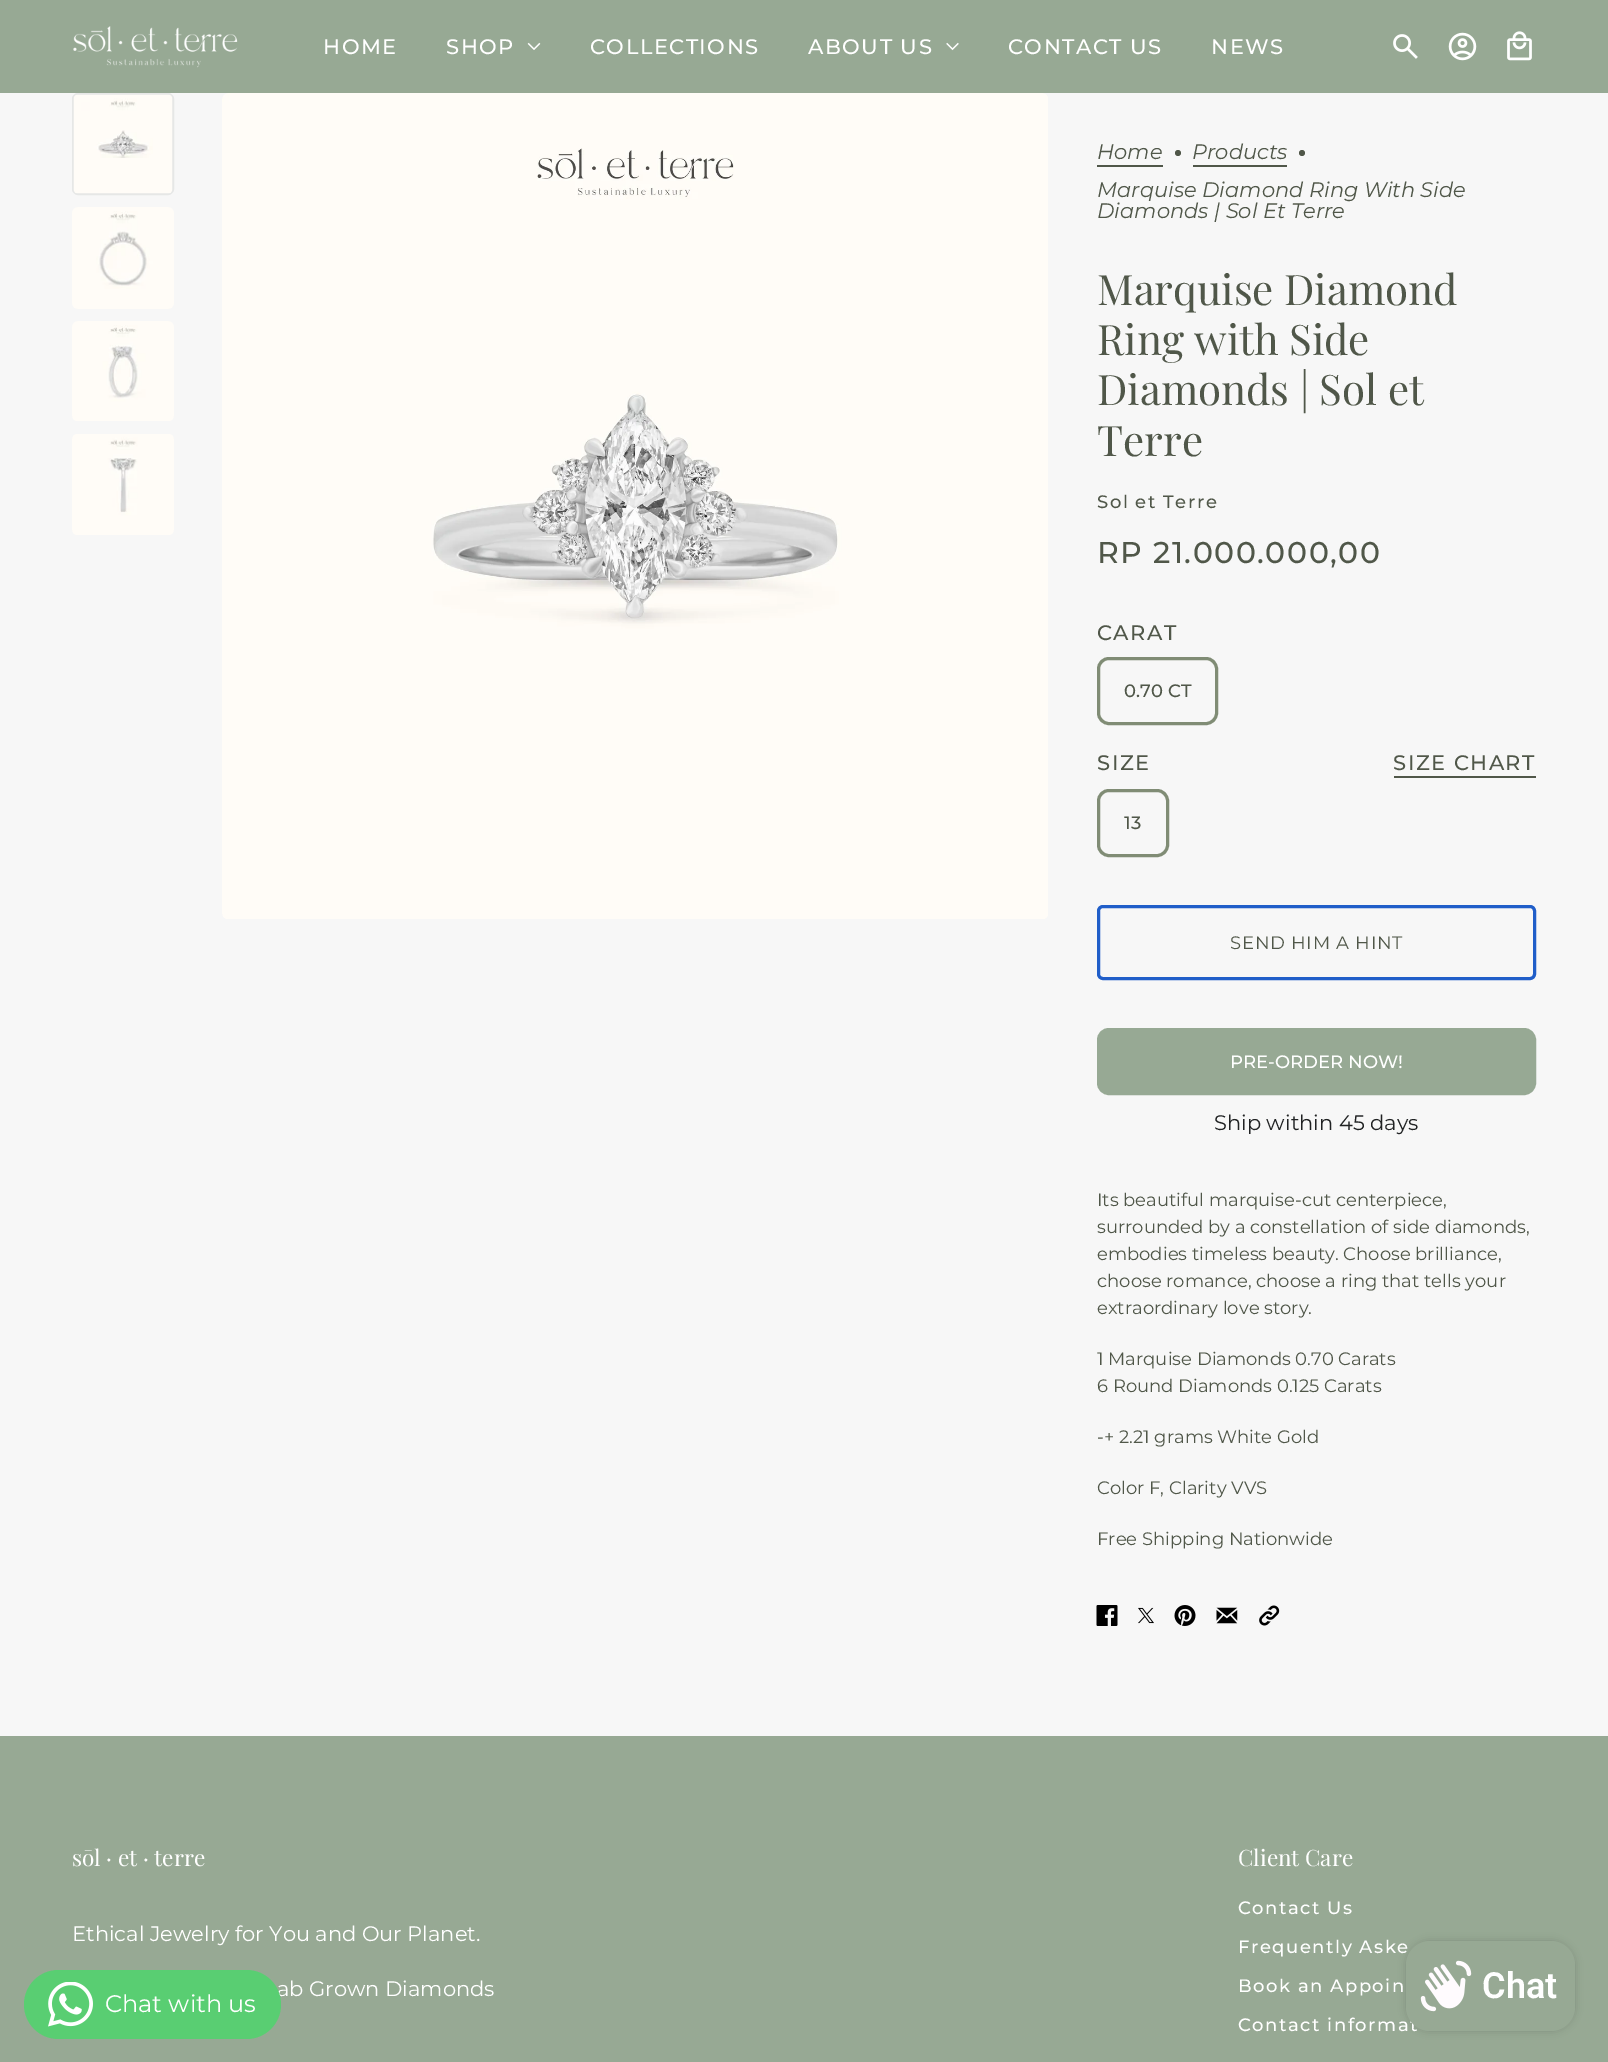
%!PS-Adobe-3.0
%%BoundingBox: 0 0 1608 2062
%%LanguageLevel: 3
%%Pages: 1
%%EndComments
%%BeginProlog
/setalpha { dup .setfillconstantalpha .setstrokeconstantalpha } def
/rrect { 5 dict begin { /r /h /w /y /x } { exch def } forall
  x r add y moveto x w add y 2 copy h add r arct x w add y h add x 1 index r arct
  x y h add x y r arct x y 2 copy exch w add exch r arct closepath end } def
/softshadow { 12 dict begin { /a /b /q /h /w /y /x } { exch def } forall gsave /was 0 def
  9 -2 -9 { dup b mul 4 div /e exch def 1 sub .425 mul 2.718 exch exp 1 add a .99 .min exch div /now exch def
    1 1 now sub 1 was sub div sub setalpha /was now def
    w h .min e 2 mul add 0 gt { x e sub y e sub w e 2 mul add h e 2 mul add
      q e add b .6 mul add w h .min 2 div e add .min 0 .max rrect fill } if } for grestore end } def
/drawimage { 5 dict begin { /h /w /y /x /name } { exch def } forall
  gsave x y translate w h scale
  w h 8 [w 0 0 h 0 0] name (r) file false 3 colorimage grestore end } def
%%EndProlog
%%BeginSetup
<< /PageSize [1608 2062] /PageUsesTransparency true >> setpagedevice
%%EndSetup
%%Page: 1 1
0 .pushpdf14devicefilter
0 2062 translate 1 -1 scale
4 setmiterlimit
0.969 setgray
0 0 1608 2062 rectfill
0.592 0.663 0.58 setrgbcolor
0 0 1608 93 rectfill
(images/1.raw) 73 26 165 42 drawimage
(images/2.raw) 527 42 14 8 drawimage
(images/3.raw) 946 42 13 9 drawimage
(images/4.raw) 1393 34 25 25 drawimage
(images/5.raw) 1448 32 29 29 drawimage
(images/6.raw) 1507 31 25 30 drawimage
0.902 0.906 0.902 setrgbcolor
2 setlinewidth
73 94 100 100 5 rrect stroke
(images/7.raw) 73 94 100 100 drawimage
(images/8.raw) 72 207 102 102 drawimage
(images/9.raw) 72 321 102 100 drawimage
(images/10.raw) 72 434 102 101 drawimage
(images/11.raw) 222 93 826 826 drawimage
0.314 0.341 0.286 setrgbcolor
1097 165 66 2 rectfill
newpath 1178 153 3 0 360 arc closepath fill
1193 165 94 2 rectfill
newpath 1302 153 3 0 360 arc closepath fill
0.502 0.549 0.459 setrgbcolor
3 setlinewidth
1098.5 658.5 118 65 10.5 rrect stroke
0.314 0.341 0.286 setrgbcolor
1394 776 142 2 rectfill
0.502 0.549 0.459 setrgbcolor
1098.5 790.5 69 65 10.5 rrect stroke
0.125 0.369 0.788 setrgbcolor
1098.5 906.5 436 72 4.5 rrect stroke
0.592 0.663 0.58 setrgbcolor
1098.5 1029.5 436 64 10.5 rrect gsave fill grestore
stroke
(images/12.raw) 1096 1605 22 21 drawimage
(images/13.raw) 1138 1607 16 17 drawimage
(images/14.raw) 1174 1605 22 21 drawimage
(images/15.raw) 1216 1607 22 17 drawimage
(images/16.raw) 1259 1605 21 21 drawimage
0 1736 1608 326 rectfill
0 setgray
1406 1941 169 90 24 4 0.15 softshadow
/Montserrat-Medium [21 0 0 -21 0 0] selectfont
1 setgray
323 54 moveto 1.5 0 (HOME) ashow
446 54 moveto 1.5 0 (SHOP) ashow
590 54 moveto 1.5 0 (COLLECTIONS) ashow
808 54 moveto 1.5 0 (ABOUT US) ashow
1008 54 moveto 1.5 0 (CONTACT US) ashow
1211 54 moveto 1.5 0 (NEWS) ashow
/Montserrat-Italic [21 0 0 -21 0 0] selectfont
0.314 0.341 0.286 setrgbcolor
1097 159 moveto (Home) show
1192 159 moveto (Products) show
1097 197 moveto (Marquise Diamond Ring With Side) show
1097 218 moveto (Diamonds | Sol Et Terre) show
/PlayfairDisplay-Regular [42 0 0 -42 0 0] selectfont
1097 305 moveto (Marquise Diamond) show
1097 355 moveto (Ring with Side) show
1097 405 moveto (Diamonds | Sol et) show
1097 456 moveto (Terre) show
/Montserrat-Medium [18 0 0 -18 0 0] selectfont
1097 508 moveto 1.5 0 (Sol et Terre) ashow
/Montserrat-Medium [30 0 0 -30 0 0] selectfont
1097 563 moveto 1.5 0 (RP 21.000.000,00) ashow
/Montserrat-Medium [21 0 0 -21 0 0] selectfont
1097 640 moveto 1.5 0 (CARAT) ashow
/Montserrat-Medium [18 0 0 -18 0 0] selectfont
1124 697 moveto (0.70 CT) show
/Montserrat-Medium [21 0 0 -21 0 0] selectfont
1097 770 moveto 1.5 0 (SIZE) ashow
1393 770 moveto 1.5 0 (SIZE CHART) ashow
/Montserrat-Medium [18 0 0 -18 0 0] selectfont
1124 829 moveto (13) show
/Montserrat-Regular [18 0 0 -18 0 0] selectfont
1230 949 moveto 0.75 0 (SEND HIM A HINT) ashow
/Montserrat-Medium [18 0 0 -18 0 0] selectfont
1 setgray
1230 1068 moveto (PRE-ORDER NOW!) show
/Montserrat-Regular [21 0 0 -21 0 0] selectfont
0.125 0.133 0.137 setrgbcolor
1214 1130 moveto (Ship within 45 days) show
/Montserrat-Regular [18 0 0 -18 0 0] selectfont
0.314 0.341 0.286 setrgbcolor
1097 1206 moveto (Its beautiful marquise-cut centerpiece,) show
1097 1233 moveto (surrounded by a constellation of side diamonds,) show
1097 1260 moveto (embodies timeless beauty. Choose brilliance,) show
1097 1287 moveto (choose romance, choose a ring that tells your) show
1097 1314 moveto (extraordinary love story.) show
1097 1365 moveto (1 Marquise Diamonds 0.70 Carats) show
1097 1392 moveto (6 Round Diamonds 0.125 Carats) show
1097 1443 moveto (-+ 2.21 grams White Gold) show
1097 1494 moveto (Color F, Clarity VVS) show
1097 1545 moveto (Free Shipping Nationwide) show
/PlayfairDisplay-Regular [22.5 0 0 -22.5 0 0] selectfont
1 setgray
72 1866 moveto (sōl · et · terre) show
/Montserrat-Regular [21 0 0 -21 0 0] selectfont
72 1941 moveto (Ethical Jewelry for You and Our Planet.) show
277 1996 moveto (ab Grown Diamonds) show
/PlayfairDisplay-Regular [22.5 0 0 -22.5 0 0] selectfont
1238 1866 moveto (Client Care) show
/Montserrat-Medium [18 0 0 -18 0 0] selectfont
1238 1914 moveto 1.5 0 (Contact Us) ashow
1238 1953 moveto 1.5 0 (Frequently Aske) ashow
1238 1992 moveto 1.5 0 (Book an Appoin) ashow
1238 2031 moveto 1.5 0 (Contact informat) ashow
0.592 0.663 0.58 setrgbcolor
1406 1941 169 90 24 rrect fill
(images/17.raw) 1420 1960 52 52 drawimage
/Roboto-SemiBold [36 0 0 -36 0 0] selectfont
1 setgray
1482 1998 moveto (Chat) show
0.349 0.808 0.447 setrgbcolor
24 1970 257 69 34.5 rrect fill
(images/18.raw) 48 1982 45 45 drawimage
/Montserrat-Regular [24 0 0 -24 0 0] selectfont
1 setgray
105 2012 moveto (Chat with us) show
.poppdf14devicefilter showpage
%%EOF
